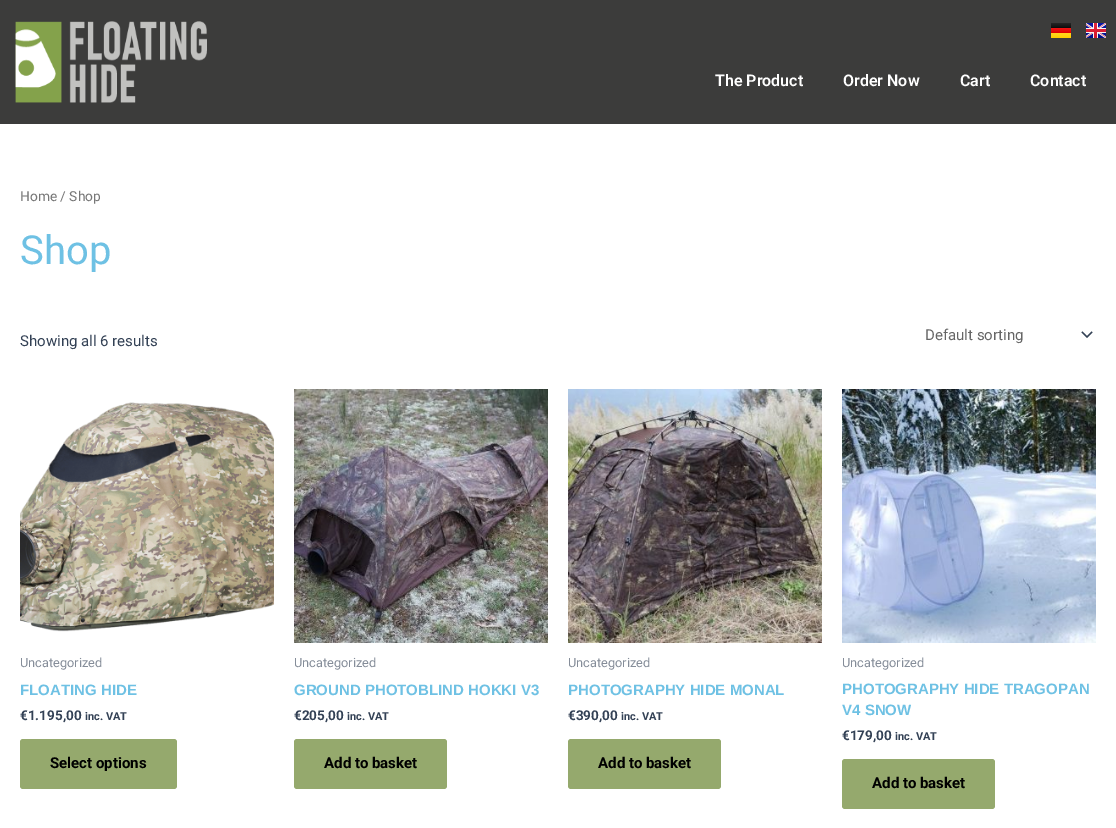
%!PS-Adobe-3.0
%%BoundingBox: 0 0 1116 828
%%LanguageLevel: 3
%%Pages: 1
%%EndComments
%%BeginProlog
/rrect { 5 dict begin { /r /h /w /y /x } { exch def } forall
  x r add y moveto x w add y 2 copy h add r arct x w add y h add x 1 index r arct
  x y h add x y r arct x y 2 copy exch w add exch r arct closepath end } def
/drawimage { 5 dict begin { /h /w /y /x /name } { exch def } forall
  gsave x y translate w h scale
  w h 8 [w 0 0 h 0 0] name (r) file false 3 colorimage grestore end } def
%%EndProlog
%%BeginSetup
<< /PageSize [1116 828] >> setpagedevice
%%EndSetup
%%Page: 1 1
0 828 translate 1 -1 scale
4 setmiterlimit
1 setgray
0 0 1116 828 rectfill
0.235 0.235 0.231 setrgbcolor
0 0 1116 124 rectfill
(images/1.raw) 15 21 192 82 drawimage
gsave newpath 1051 23 moveto 1071 23 lineto 1071 28 lineto 1051 28 lineto closepath clip newpath
<< /ShadingType 2 /ColorSpace /DeviceRGB /Coords [1061 23 1061 28] /Extend [true true] /Function << /FunctionType 2 /Domain [0 1] /C0 [0.149 0.149 0.149] /C1 [0.051 0.051 0.051] /N 1 >> >> shfill grestore
gsave newpath 1051 28 moveto 1071 28 lineto 1071 33 lineto 1051 33 lineto closepath clip newpath
<< /ShadingType 2 /ColorSpace /DeviceRGB /Coords [1061 28 1061 33] /Extend [true true] /Function << /FunctionType 2 /Domain [0 1] /C0 [0.941 0.082 0.082] /C1 [0.871 0 0] /N 1 >> >> shfill grestore
gsave newpath 1051 33 moveto 1071 33 lineto 1071 38 lineto 1051 38 lineto closepath clip newpath
<< /ShadingType 2 /ColorSpace /DeviceRGB /Coords [1061 33 1061 38] /Extend [true true] /Function << /FunctionType 2 /Domain [0 1] /C0 [1 0.835 0.129] /C1 [1 0.812 0] /N 1 >> >> shfill grestore
(images/2.raw) 1086 23 20 15 drawimage
(images/3.raw) 1081 331 12 7 drawimage
(images/4.raw) 20 402 254 230 drawimage
0.584 0.663 0.427 setrgbcolor
20 739 157 50 3 rrect fill
(images/5.raw) 294 389 254 254 drawimage
294 739 153 50 3 rrect fill
(images/6.raw) 568 389 254 254 drawimage
568 739 153 50 3 rrect fill
(images/7.raw) 842 389 254 254 drawimage
842 759 153 50 3 rrect fill
/Roboto-SemiBold [16 0 0 -16 0 0] selectfont
1 setgray
715 86 moveto (The Product) show
843 86 moveto (Order Now) show
960 86 moveto (Cart) show
1030 86 moveto (Contact) show
/Roboto-Regular [13.75 0 0 -13.75 0 0] selectfont
0.467 setgray
20 201 moveto (Home / Shop) show
/Roboto-Regular [40 0 0 -40 0 0] selectfont
0.431 0.757 0.894 setrgbcolor
20 264 moveto (Shop) show
/Roboto-Regular [15 0 0 -15 0 0] selectfont
0.2 0.255 0.333 setrgbcolor
20 346 moveto (Showing all 6 results) show
0.4 setgray
925 340 moveto (Default sorting) show
/Roboto-Regular [12.75 0 0 -12.75 0 0] selectfont
0.522 0.553 0.6 setrgbcolor
20 667 moveto (Uncategorized) show
/LiberationSans-Bold [15 0 0 -15 0 0] selectfont
0.431 0.757 0.894 setrgbcolor
20 695 moveto (FLOATING HIDE) show
/Roboto-Bold [13.5 0 0 -13.5 0 0] selectfont
0.2 0.255 0.333 setrgbcolor
20 720 moveto (€1.195,00) show
/Roboto-Bold [11 0 0 -11 0 0] selectfont
85 720 moveto (inc. VAT) show
/Roboto-Bold [15 0 0 -15 0 0] selectfont
0 setgray
50 768 moveto (Select options) show
/Roboto-Regular [12.75 0 0 -12.75 0 0] selectfont
0.522 0.553 0.6 setrgbcolor
294 667 moveto (Uncategorized) show
/LiberationSans-Bold [15 0 0 -15 0 0] selectfont
0.431 0.757 0.894 setrgbcolor
294 695 moveto (GROUND PHOTOBLIND HOKKI V3) show
/Roboto-Bold [13.5 0 0 -13.5 0 0] selectfont
0.2 0.255 0.333 setrgbcolor
294 720 moveto (€205,00) show
/Roboto-Bold [11 0 0 -11 0 0] selectfont
347 720 moveto (inc. VAT) show
/Roboto-Bold [15 0 0 -15 0 0] selectfont
0 setgray
324 768 moveto (Add to basket) show
/Roboto-Regular [12.75 0 0 -12.75 0 0] selectfont
0.522 0.553 0.6 setrgbcolor
568 667 moveto (Uncategorized) show
/LiberationSans-Bold [15 0 0 -15 0 0] selectfont
0.431 0.757 0.894 setrgbcolor
568 695 moveto (PHOTOGRAPHY HIDE MONAL) show
/Roboto-Bold [13.5 0 0 -13.5 0 0] selectfont
0.2 0.255 0.333 setrgbcolor
568 720 moveto (€390,00) show
/Roboto-Bold [11 0 0 -11 0 0] selectfont
621 720 moveto (inc. VAT) show
/Roboto-Bold [15 0 0 -15 0 0] selectfont
0 setgray
598 768 moveto (Add to basket) show
/Roboto-Regular [12.75 0 0 -12.75 0 0] selectfont
0.522 0.553 0.6 setrgbcolor
842 667 moveto (Uncategorized) show
/LiberationSans-Bold [15 0 0 -15 0 0] selectfont
0.431 0.757 0.894 setrgbcolor
842 694 moveto (PHOTOGRAPHY HIDE TRAGOPAN) show
842 715 moveto (V4 SNOW) show
/Roboto-Bold [13.5 0 0 -13.5 0 0] selectfont
0.2 0.255 0.333 setrgbcolor
842 740 moveto (€179,00) show
/Roboto-Bold [11 0 0 -11 0 0] selectfont
895 740 moveto (inc. VAT) show
/Roboto-Bold [15 0 0 -15 0 0] selectfont
0 setgray
872 788 moveto (Add to basket) show
showpage
%%EOF
